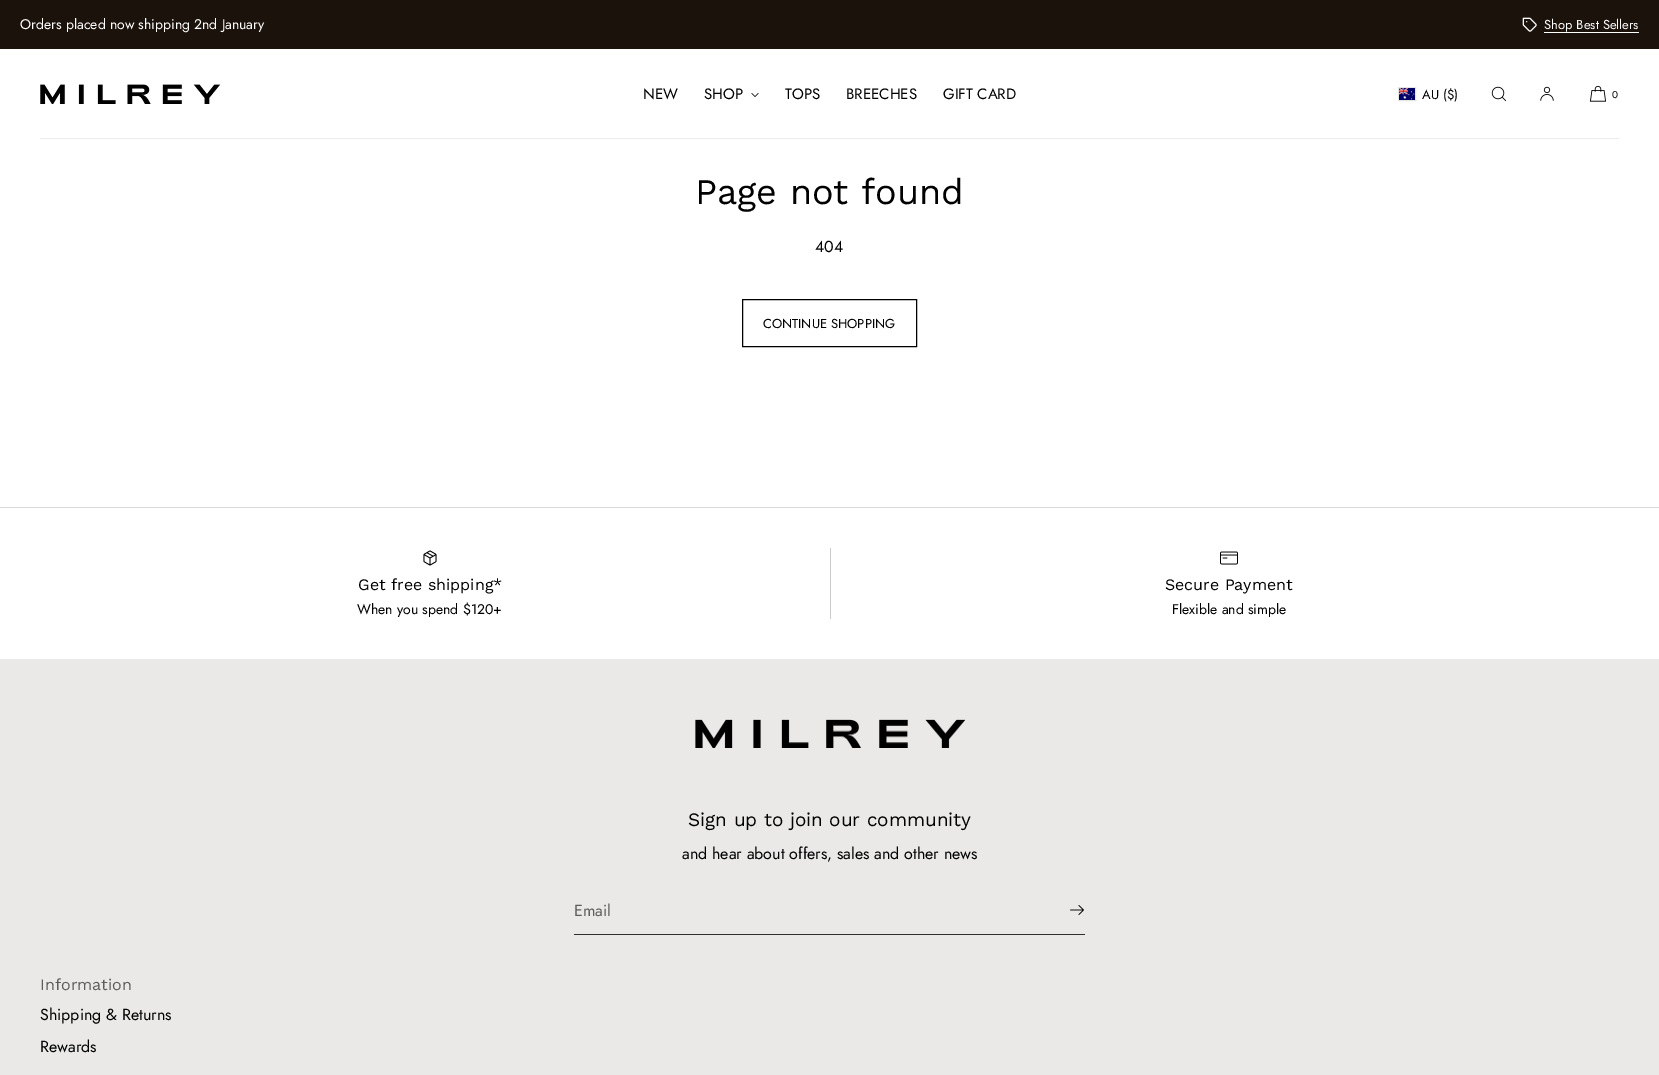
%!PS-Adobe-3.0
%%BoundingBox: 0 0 1659 1075
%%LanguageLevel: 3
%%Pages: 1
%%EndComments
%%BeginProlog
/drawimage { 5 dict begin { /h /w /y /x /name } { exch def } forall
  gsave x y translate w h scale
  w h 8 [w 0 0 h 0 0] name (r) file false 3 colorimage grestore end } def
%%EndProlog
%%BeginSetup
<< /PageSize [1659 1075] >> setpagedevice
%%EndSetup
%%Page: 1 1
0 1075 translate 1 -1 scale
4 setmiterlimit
1 setgray
0 0 1659 1075 rectfill
0.106 0.071 0.043 setrgbcolor
0 0 1659 49 rectfill
(images/1.raw) 1522 17 15 15 drawimage
1 setgray
1544 32 95 1 rectfill
(images/2.raw) 40 84 180 20 drawimage
(images/3.raw) 751 93 8 4 drawimage
0.902 setgray
1398.5 87.5 17 13 rectstroke
(images/4.raw) 1399 88 16 12 drawimage
(images/5.raw) 1491 86 16 16 drawimage
(images/6.raw) 1540 86 14 15 drawimage
(images/7.raw) 1589 85 18 17 drawimage
0.925 setgray
40 138 1579 1 rectfill
0 setgray
742.5 299.5 174 47 rectstroke
0.851 setgray
0 507 1659 1 rectfill
(images/8.raw) 423 550 14 16 drawimage
0.8 setgray
830 548 1 71 rectfill
(images/9.raw) 1220 551 18 14 drawimage
0.918 0.914 0.906 setrgbcolor
0 659 1659 416 rectfill
(images/10.raw) 695 719 270 29 drawimage
0.184 0.184 0.18 setrgbcolor
574 934 511 1 rectfill
(images/11.raw) 1070 905 14 10 drawimage
/Jost-Regular [14 0 0 -14 0 0] selectfont
1 setgray
20 29 moveto (Orders placed now shipping 2nd January) show
/Jost-Regular [13 0 0 -13 0 0] selectfont
1544 29 moveto (Shop Best Sellers) show
/Jost-Regular [15 0 0 -15 0 0] selectfont
0 setgray
643 99 moveto (NEW) show
704 99 moveto (SHOP) show
785 99 moveto (TOPS) show
846 99 moveto (BREECHES) show
943 99 moveto (GIFT CARD) show
/Jost-Regular [13 0 0 -13 0 0] selectfont
1422 99 moveto (AU \($\)) show
/Jost-Regular [10 0 0 -10 0 0] selectfont
1612 98 moveto (0) show
/WorkSans-Regular [36 0 0 -36 0 0] selectfont
695 204 moveto (Page not found) show
/Jost-Regular [16 0 0 -16 0 0] selectfont
815 252 moveto (404) show
/Jost-Regular [13 0 0 -13 0 0] selectfont
763 328 moveto (CONTINUE SHOPPING) show
/WorkSans-Regular [16 0 0 -16 0 0] selectfont
358 590 moveto (Get free shipping*) show
/Jost-Regular [14 0 0 -14 0 0] selectfont
357 614 moveto (When you spend $120+) show
/WorkSans-Regular [16 0 0 -16 0 0] selectfont
1165 590 moveto (Secure Payment) show
/Jost-Regular [14 0 0 -14 0 0] selectfont
1172 614 moveto (Flexible and simple) show
/WorkSans-Regular [19 0 0 -19 0 0] selectfont
688 826 moveto (Sign up to join our community) show
/Jost-Regular [16 0 0 -16 0 0] selectfont
682 859 moveto (and hear about offers, sales and other news) show
0.369 0.365 0.361 setrgbcolor
574 916 moveto (Email) show
/WorkSans-Regular [16 0 0 -16 0 0] selectfont
40 990 moveto (Information) show
/Jost-Regular [16 0 0 -16 0 0] selectfont
0 setgray
40 1020 moveto (Shipping & Returns) show
40 1052 moveto (Rewards) show
showpage
%%EOF
